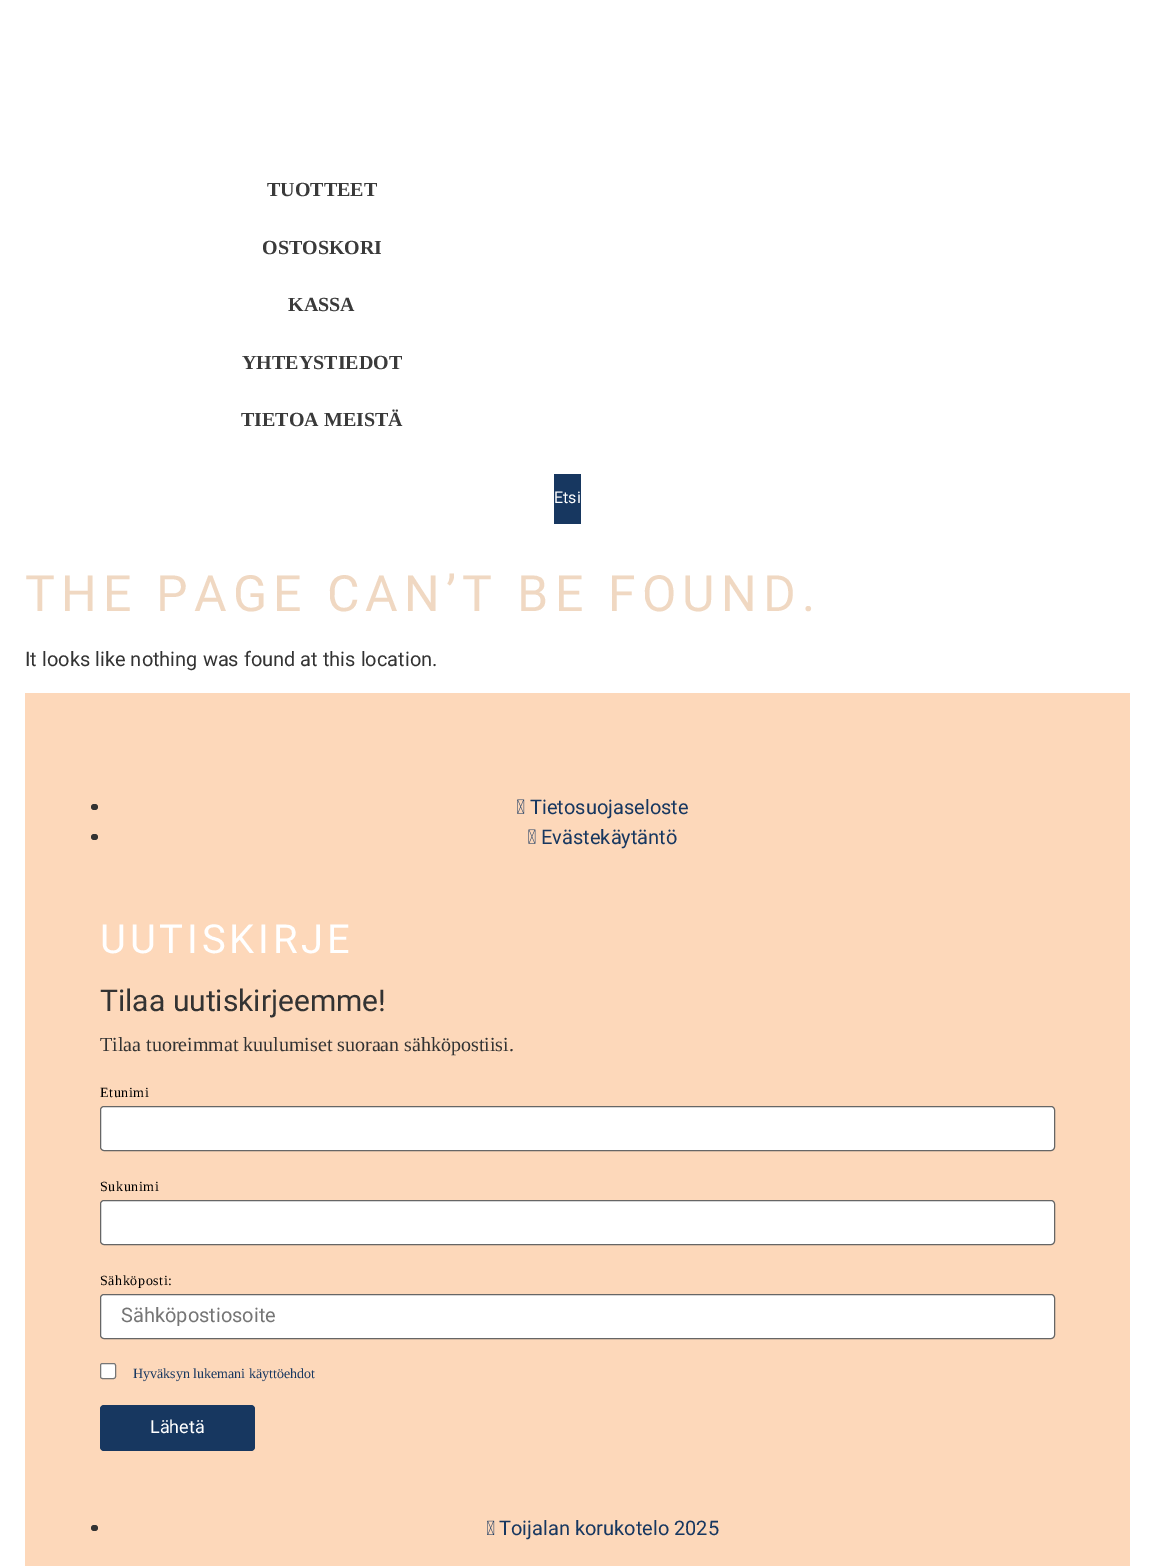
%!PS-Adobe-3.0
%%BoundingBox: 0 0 1154 1566
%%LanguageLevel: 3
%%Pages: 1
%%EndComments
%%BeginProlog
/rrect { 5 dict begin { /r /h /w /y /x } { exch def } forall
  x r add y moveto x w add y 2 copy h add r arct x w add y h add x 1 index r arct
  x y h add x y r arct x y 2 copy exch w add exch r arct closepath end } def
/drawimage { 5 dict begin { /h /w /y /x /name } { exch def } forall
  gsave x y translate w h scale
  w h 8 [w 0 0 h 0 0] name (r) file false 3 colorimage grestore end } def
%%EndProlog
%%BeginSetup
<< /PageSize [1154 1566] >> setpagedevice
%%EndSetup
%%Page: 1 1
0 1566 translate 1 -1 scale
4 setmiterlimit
1 setgray
0 0 1154 1566 rectfill
0.09 0.216 0.376 setrgbcolor
554 474 27 50 rectfill
0.992 0.847 0.729 setrgbcolor
25 693 1105 873 rectfill
0.2 setgray
91 804 7 6 3 rrect fill
(images/1.raw) 517 799 8 15 drawimage
91 834 7 6 3 rrect fill
(images/2.raw) 528 829 8 15 drawimage
1 setgray
100.5 1106.5 954 44 3.5 rrect gsave fill grestore
0.4 setgray
stroke
1 setgray
100.5 1200.5 954 44 3.5 rrect gsave fill grestore
0.4 setgray
stroke
1 setgray
100.5 1294.5 954 44 3.5 rrect gsave fill grestore
0.4 setgray
stroke
1 setgray
100.5 1363.5 15 15 2 rrect gsave fill grestore
0.463 setgray
stroke
0.09 0.216 0.376 setrgbcolor
100 1405 155 46 4 rrect fill
0.2 setgray
91 1525 7 6 3 rrect fill
(images/3.raw) 487 1520 8 15 drawimage
/LiberationSerif-Bold [20 0 0 -20 0 0] selectfont
0.227 setgray
267 196 moveto (TUOTTEET) show
262 254 moveto (OSTOSKORI) show
288 311 moveto (KASSA) show
242 369 moveto (YHTEYSTIEDOT) show
241 426 moveto (TIETOA MEISTÄ) show
/Roboto-Regular [16 0 0 -16 0 0] selectfont
1 setgray
554 503 moveto (Etsi) show
/Roboto-Regular [50 0 0 -50 0 0] selectfont
0.941 0.847 0.761 setrgbcolor
25 611 moveto 6.25 0 (THE PAGE CAN’T BE FOUND.) ashow
/Roboto-Regular [20 0 0 -20 0 0] selectfont
0.2 setgray
25 666 moveto (It looks like nothing was found at this location.) show
0.09 0.216 0.376 setrgbcolor
530 814 moveto (Tietosuojaseloste) show
541 844 moveto (Evästekäytäntö) show
/Roboto-Regular [40 0 0 -40 0 0] selectfont
1 setgray
100 953 moveto 3.75 0 (UUTISKIRJE) ashow
/Roboto-Regular [30 0 0 -30 0 0] selectfont
0.2 setgray
100 1011 moveto (Tilaa uutiskirjeemme!) show
/LiberationSerif-Regular [20 0 0 -20 0 0] selectfont
100 1051 moveto (Tilaa tuoreimmat kuulumiset suoraan sähköpostiisi.) show
/LiberationSerif-Regular [14 0 0 -14 0 0] selectfont
0 setgray
100 1097 moveto 0.6 0 (Etunimi) ashow
100 1191 moveto 0.6 0 (Sukunimi) ashow
100 1285 moveto 0.6 0 (Sähköposti:) ashow
/Roboto-Regular [20 0 0 -20 0 0] selectfont
0.459 setgray
121 1322 moveto (Sähköpostiosoite) show
/LiberationSerif-Regular [14 0 0 -14 0 0] selectfont
0.09 0.216 0.376 setrgbcolor
133 1378 moveto (Hyväksyn lukemani käyttöehdot) show
/Roboto-Regular [18 0 0 -18 0 0] selectfont
1 setgray
150 1433 moveto (Lähetä) show
/Roboto-Regular [20 0 0 -20 0 0] selectfont
0.09 0.216 0.376 setrgbcolor
499 1535 moveto (Toijalan korukotelo 2025) show
showpage
%%EOF
